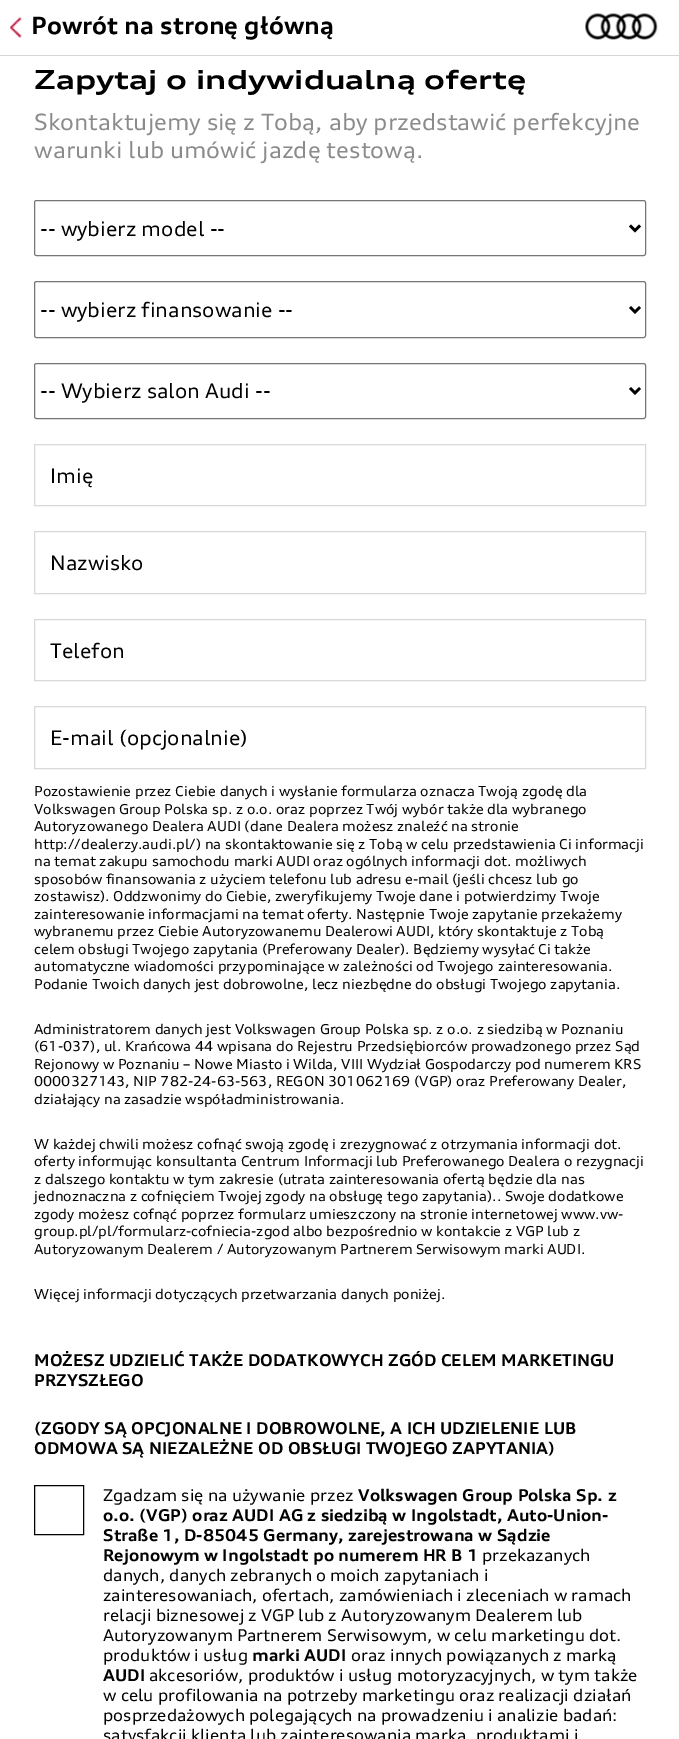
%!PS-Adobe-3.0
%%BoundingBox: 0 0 679 1739
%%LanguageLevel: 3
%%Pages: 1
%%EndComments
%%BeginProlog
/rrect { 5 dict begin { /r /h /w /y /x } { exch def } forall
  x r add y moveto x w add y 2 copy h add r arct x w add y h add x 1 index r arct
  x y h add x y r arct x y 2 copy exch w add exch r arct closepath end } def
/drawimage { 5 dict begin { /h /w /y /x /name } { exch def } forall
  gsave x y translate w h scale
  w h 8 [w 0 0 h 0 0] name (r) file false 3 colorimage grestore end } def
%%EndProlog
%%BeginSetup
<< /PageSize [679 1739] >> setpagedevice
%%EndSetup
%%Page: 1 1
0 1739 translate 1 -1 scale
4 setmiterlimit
1 setgray
0 0 679 1739 rectfill
0.839 setgray
0 55 679 1 rectfill
(images/1.raw) 10 17 12 21 drawimage
(images/2.raw) 585 13 73 27 drawimage
0.463 setgray
34.5 200.5 611 55 2 rrect stroke
0 setgray
2.5 setlinewidth
newpath 630 225.5 moveto 635 230.5 lineto 640 225.5 lineto stroke
0.463 setgray
1 setlinewidth
34.5 281.5 611 56 2 rrect stroke
0 setgray
2.5 setlinewidth
newpath 630 307 moveto 635 312 lineto 640 307 lineto stroke
0.463 setgray
1 setlinewidth
34.5 363.5 611 55 2 rrect stroke
0 setgray
2.5 setlinewidth
newpath 630 388 moveto 635 393 lineto 640 388 lineto stroke
0.851 setgray
1 setlinewidth
34.5 444.5 611 61 rectstroke
34.5 531.5 611 62 rectstroke
34.5 619.5 611 61 rectstroke
34.5 706.5 611 62 rectstroke
0 setgray
34.5 1485.5 49 49 rectstroke
/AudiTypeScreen-Bold [23.75 0 0 -23.75 0 0] selectfont
31 34 moveto (Powrót na stronę główną) show
/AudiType-Bold [26.25 0 0 -26.25 0 0] selectfont
34 89 moveto (Zapytaj o indywidualną ofertę) show
/AudiTypeScreen-Regular [22.5 0 0 -22.5 0 0] selectfont
0.545 setgray
34 130 moveto (Skontaktujemy się z Tobą, aby przedstawić perfekcyjne) show
34 158 moveto (warunki lub umówić jazdę testową.) show
/AudiTypeScreen-Regular [20 0 0 -20 0 0] selectfont
0 setgray
40 236 moveto (-- wybierz model --) show
40 317 moveto (-- wybierz finansowanie --) show
40 398 moveto (-- Wybierz salon Audi --) show
50 483 moveto (Imię) show
50 570 moveto (Nazwisko) show
50 658 moveto (Telefon) show
50 745 moveto (E-mail \(opcjonalnie\)) show
/AudiTypeScreen-Regular [13.75 0 0 -13.75 0 0] selectfont
34 796 moveto (Pozostawienie przez Ciebie danych i wysłanie formularza oznacza Twoją zgodę dla) show
34 814 moveto (Volkswagen Group Polska sp. z o.o. oraz poprzez Twój wybór także dla wybranego) show
34 831 moveto (Autoryzowanego Dealera AUDI \(dane Dealera możesz znaleźć na stronie) show
34 849 moveto (http://dealerzy.audi.pl/\) na skontaktowanie się z Tobą w celu przedstawienia Ci informacji) show
34 866 moveto (na temat zakupu samochodu marki AUDI oraz ogólnych informacji dot. możliwych) show
34 884 moveto (sposobów finansowania z użyciem telefonu lub adresu e-mail \(jeśli chcesz lub go) show
34 901 moveto (zostawisz\). Oddzwonimy do Ciebie, zweryfikujemy Twoje dane i potwierdzimy Twoje) show
34 919 moveto (zainteresowanie informacjami na temat oferty. Następnie Twoje zapytanie przekażemy) show
34 936 moveto (wybranemu przez Ciebie Autoryzowanemu Dealerowi AUDI, który skontaktuje z Tobą) show
34 954 moveto (celem obsługi Twojego zapytania \(Preferowany Dealer\). Będziemy wysyłać Ci także) show
34 971 moveto (automatyczne wiadomości przypominające w zależności od Twojego zainteresowania.) show
34 989 moveto (Podanie Twoich danych jest dobrowolne, lecz niezbędne do obsługi Twojego zapytania.) show
34 1034 moveto (Administratorem danych jest Volkswagen Group Polska sp. z o.o. z siedzibą w Poznaniu) show
34 1051 moveto (\(61-037\), ul. Krańcowa 44 wpisana do Rejestru Przedsiębiorców prowadzonego przez Sąd) show
34 1069 moveto (Rejonowy w Poznaniu – Nowe Miasto i Wilda, VIII Wydział Gospodarczy pod numerem KRS) show
34 1086 moveto (0000327143, NIP 782-24-63-563, REGON 301062169 \(VGP\) oraz Preferowany Dealer,) show
34 1104 moveto (działający na zasadzie współadministrowania.) show
34 1149 moveto (W każdej chwili możesz cofnąć swoją zgodę i zrezygnować z otrzymania informacji dot.) show
34 1166 moveto (oferty informując konsultanta Centrum Informacji lub Preferowanego Dealera o rezygnacji) show
34 1184 moveto (z dalszego kontaktu w tym zakresie \(utrata zainteresowania ofertą będzie dla nas) show
34 1201 moveto (jednoznaczna z cofnięciem Twojej zgody na obsługę tego zapytania\).. Swoje dodatkowe) show
34 1219 moveto (zgody możesz cofnąć poprzez formularz umieszczony na stronie internetowej www.vw-) show
34 1236 moveto (group.pl/pl/formularz-cofniecia-zgod albo bezpośrednio w kontakcie z VGP lub z) show
34 1254 moveto (Autoryzowanym Dealerem / Autoryzowanym Partnerem Serwisowym marki AUDI.) show
34 1299 moveto (Więcej informacji dotyczących przetwarzania danych poniżej.) show
/AudiTypeScreen-Bold [16.25 0 0 -16.25 0 0] selectfont
34 1366 moveto (MOŻESZ UDZIELIĆ TAKŻE DODATKOWYCH ZGÓD CELEM MARKETINGU) show
34 1386 moveto (PRZYSZŁEGO) show
34 1434 moveto (\(ZGODY SĄ OPCJONALNE I DOBROWOLNE, A ICH UDZIELENIE LUB) show
34 1454 moveto (ODMOWA SĄ NIEZALEŻNE OD OBSŁUGI TWOJEGO ZAPYTANIA\)) show
/AudiTypeScreen-Regular [16.25 0 0 -16.25 0 0] selectfont
103 1501 moveto (Zgadzam się na używanie przez) show
/AudiTypeScreen-Bold [16.25 0 0 -16.25 0 0] selectfont
358 1501 moveto (Volkswagen Group Polska Sp. z) show
103 1521 moveto (o.o. \(VGP\) oraz AUDI AG z siedzibą w Ingolstadt, Auto-Union-) show
103 1541 moveto (Straße 1, D-85045 Germany, zarejestrowana w Sądzie) show
103 1561 moveto (Rejonowym w Ingolstadt po numerem HR B 1) show
/AudiTypeScreen-Regular [16.25 0 0 -16.25 0 0] selectfont
482 1561 moveto (przekazanych) show
103 1581 moveto (danych, danych zebranych o moich zapytaniach i) show
103 1601 moveto (zainteresowaniach, ofertach, zamówieniach i zleceniach w ramach) show
103 1621 moveto (relacji biznesowej z VGP lub z Autoryzowanym Dealerem lub) show
103 1641 moveto (Autoryzowanym Partnerem Serwisowym, w celu marketingu dot.) show
103 1661 moveto (produktów i usług) show
/AudiTypeScreen-Bold [16.25 0 0 -16.25 0 0] selectfont
252 1661 moveto (marki AUDI) show
/AudiTypeScreen-Regular [16.25 0 0 -16.25 0 0] selectfont
351 1661 moveto (oraz innych powiązanych z marką) show
/AudiTypeScreen-Bold [16.25 0 0 -16.25 0 0] selectfont
103 1681 moveto (AUDI) show
/AudiTypeScreen-Regular [16.25 0 0 -16.25 0 0] selectfont
149 1681 moveto (akcesoriów, produktów i usług motoryzacyjnych, w tym także) show
103 1701 moveto (w celu profilowania na potrzeby marketingu oraz realizacji działań) show
103 1721 moveto (posprzedażowych polegających na prowadzeniu i analizie badań:) show
103 1741 moveto (satysfakcji klienta lub zainteresowania marką, produktami i) show
showpage
%%EOF
